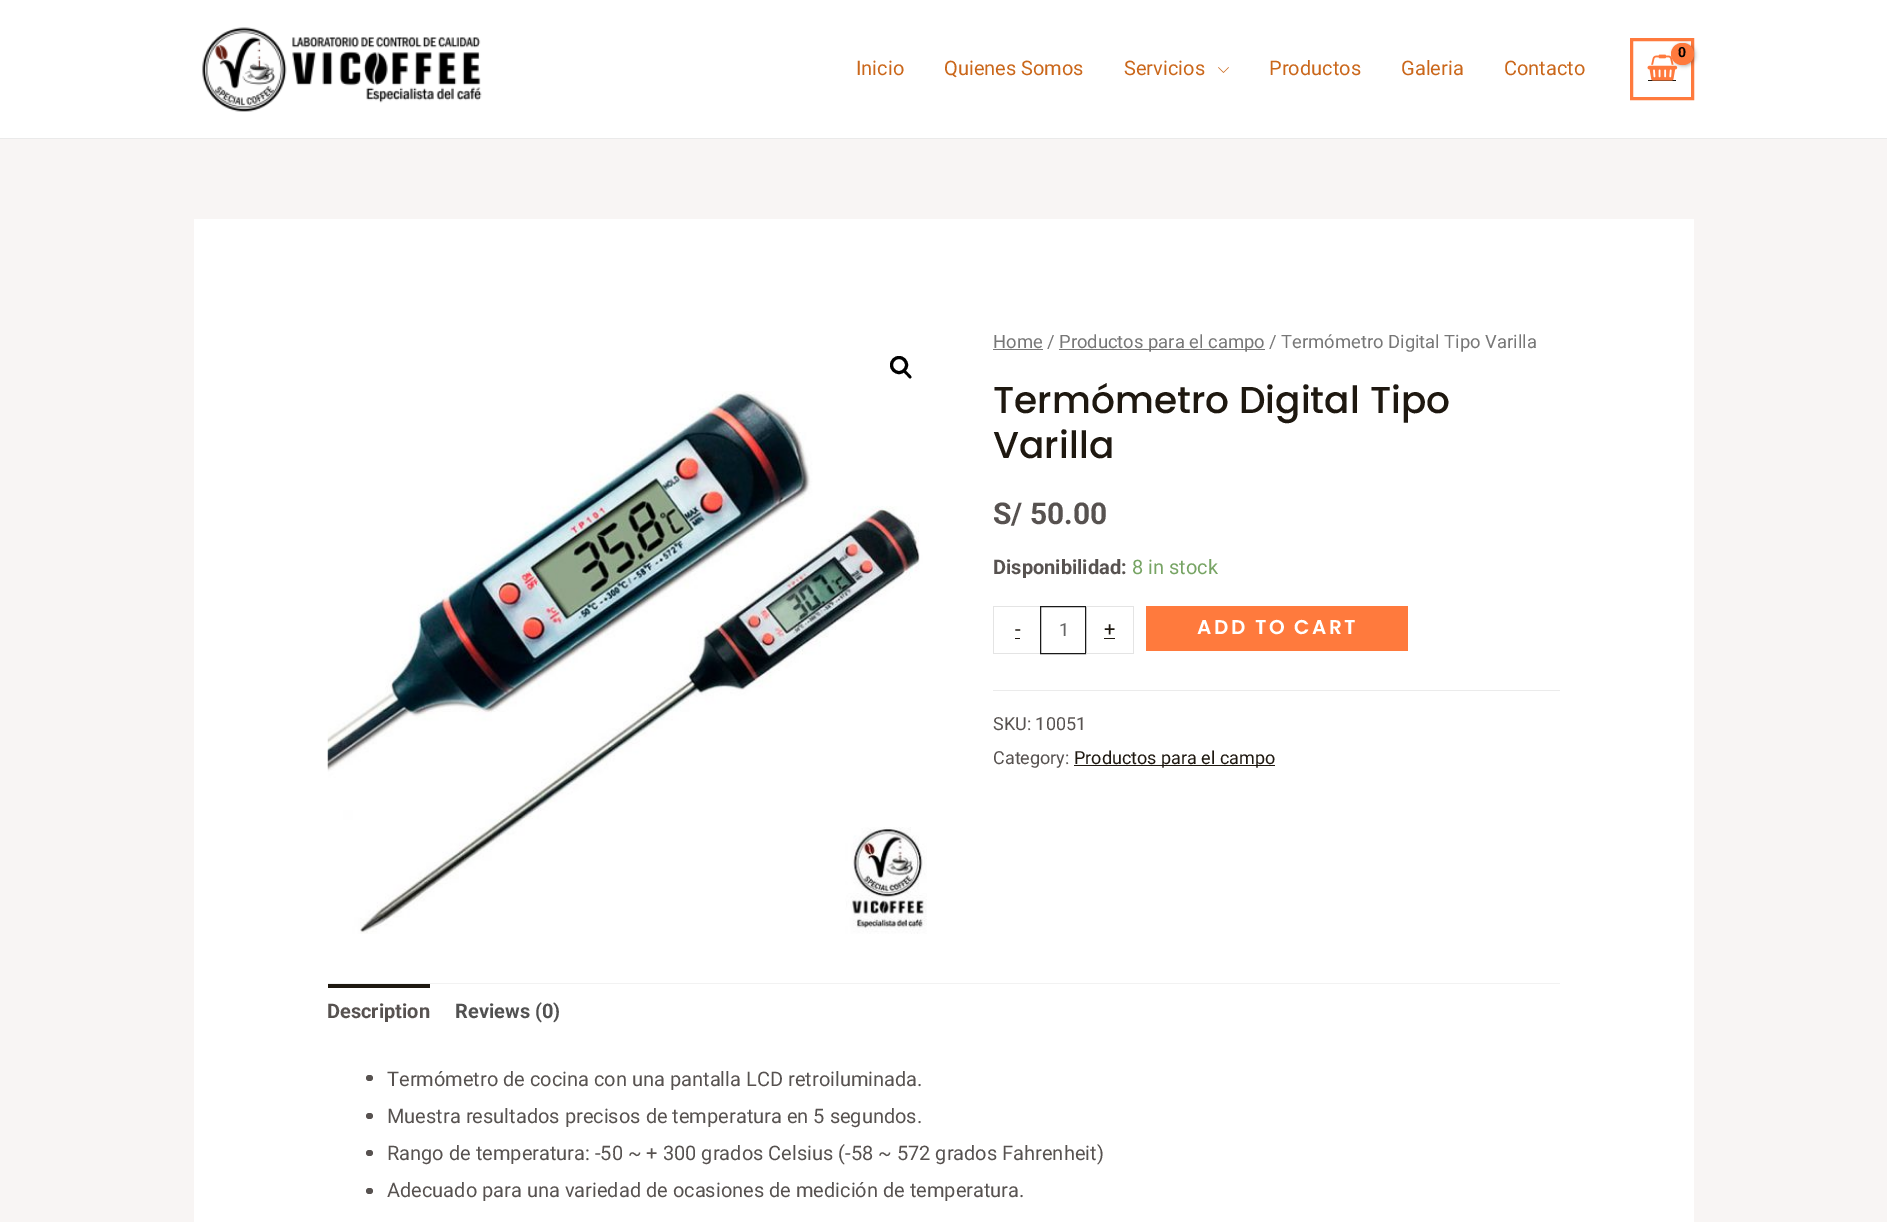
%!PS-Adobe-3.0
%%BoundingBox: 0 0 1887 1222
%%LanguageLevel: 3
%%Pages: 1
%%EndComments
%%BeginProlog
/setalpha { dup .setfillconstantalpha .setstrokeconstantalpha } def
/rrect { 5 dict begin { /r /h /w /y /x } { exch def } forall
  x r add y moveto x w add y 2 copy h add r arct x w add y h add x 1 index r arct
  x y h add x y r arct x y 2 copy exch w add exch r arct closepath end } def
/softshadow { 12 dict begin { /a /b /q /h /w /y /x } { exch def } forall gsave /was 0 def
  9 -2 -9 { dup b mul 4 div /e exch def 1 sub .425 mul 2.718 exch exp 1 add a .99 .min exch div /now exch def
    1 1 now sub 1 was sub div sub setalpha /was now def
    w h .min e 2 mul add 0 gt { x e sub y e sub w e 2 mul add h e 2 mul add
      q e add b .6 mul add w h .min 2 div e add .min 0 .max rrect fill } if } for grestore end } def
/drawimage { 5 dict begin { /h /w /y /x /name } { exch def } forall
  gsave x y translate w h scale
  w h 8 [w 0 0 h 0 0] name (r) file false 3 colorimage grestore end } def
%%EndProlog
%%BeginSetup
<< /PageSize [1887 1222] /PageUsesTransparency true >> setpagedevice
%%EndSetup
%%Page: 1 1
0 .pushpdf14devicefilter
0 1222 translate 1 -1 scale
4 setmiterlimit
0.973 0.961 0.957 setrgbcolor
0 0 1887 1222 rectfill
1 setgray
0 0 1887 138 rectfill
0.918 setgray
0 138 1887 1 rectfill
(images/1.raw) 202 27 280 85 drawimage
1 0.478 0.239 setrgbcolor
3 setlinewidth
1631.5 39.5 61 59 rectstroke
0.118 0.094 0.063 setrgbcolor
1648 80 28 1 rectfill
(images/2.raw) 1647 54 31 27 drawimage
0 setgray
1673 44 22 22 11 2 0.3 softshadow
1 0.478 0.239 setrgbcolor
1671 43 23 22 11 rrect fill
(images/3.raw) 1218 67 11 6 drawimage
1 setgray
194 219 1500 1003 rectfill
0 setgray
newpath 899 365 7.5 0 360 arc closepath stroke
newpath 904 371 moveto 905.5 369.5 907.5 372.5 908.5 373.5 curveto 909 374 912.5 376.5 911 378 curveto 909.5 379.5 907.5 376 906.5 375 curveto 906 374.5 902.5 372 904 371 curveto closepath fill
(images/4.raw) 327 391 600 543 drawimage
0.467 setgray
993 349 50 1 rectfill
1059 349 206 1 rectfill
0.894 setgray
993 606 47 1 rectfill
993 653 47 1 rectfill
993 606 1 48 rectfill
0.118 0.094 0.063 setrgbcolor
1015 638 5 1 rectfill
0.102 setgray
1 setlinewidth
1040.5 606.5 45 47 rectstroke
0.894 setgray
1086 606 48 1 rectfill
1133 606 1 48 rectfill
1086 653 48 1 rectfill
0.118 0.094 0.063 setrgbcolor
1104 638 11 1 rectfill
1 0.478 0.239 setrgbcolor
1146 606 262 45 rectfill
0.922 setgray
993 690 567 1 rectfill
0.118 0.094 0.063 setrgbcolor
1074 765 201 1 rectfill
0.949 setgray
328 983 1232 1 rectfill
0.118 0.094 0.063 setrgbcolor
328 984 102 4 rectfill
0.341 0.322 0.314 setrgbcolor
366 1075 7 6 3 rrect fill
366 1113 7 6 3 rrect fill
366 1150 7 6 3 rrect fill
366 1188 7 6 3 rrect fill
/Roboto-Bold [14 0 0 -14 0 0] selectfont
0 setgray
1678 57 moveto -1 0 (0) ashow
/Roboto-Regular [20 0 0 -20 0 0] selectfont
0.792 0.404 0.106 setrgbcolor
856 75 moveto (Inicio) show
944 75 moveto (Quienes Somos) show
1124 75 moveto (Servicios) show
1269 75 moveto (Productos) show
1401 75 moveto (Galeria) show
1504 75 moveto (Contacto) show
/Roboto-Regular [18.4 0 0 -18.4 0 0] selectfont
0.467 setgray
993 348 moveto (Home /) show
1059 348 moveto (Productos para el campo / Termómetro Digital Tipo Varilla) show
/Poppins-Medium [37.5 0 0 -37.5 0 0] selectfont
0.118 0.094 0.063 setrgbcolor
993 413 moveto (Termómetro Digital Tipo) show
993 458 moveto (Varilla) show
/Roboto-Bold [30 0 0 -30 0 0] selectfont
0.341 0.322 0.314 setrgbcolor
993 524 moveto (S/ 50.00) show
/Roboto-Bold [20 0 0 -20 0 0] selectfont
993 574 moveto (Disponibilidad:) show
/Roboto-Regular [20 0 0 -20 0 0] selectfont
0.467 0.643 0.392 setrgbcolor
1132 574 moveto (8 in stock) show
0.118 0.094 0.063 setrgbcolor
1015 636 moveto (-) show
/Roboto-Regular [18 0 0 -18 0 0] selectfont
0.4 setgray
1059 636 moveto (1) show
/Roboto-Regular [20 0 0 -20 0 0] selectfont
0.118 0.094 0.063 setrgbcolor
1104 636 moveto (+) show
/Poppins-SemiBold [20 0 0 -20 0 0] selectfont
1 setgray
1197 634 moveto 2.5 0 (ADD TO CART) ashow
/Roboto-Regular [18 0 0 -18 0 0] selectfont
0.341 0.322 0.314 setrgbcolor
993 730 moveto (SKU: 10051) show
993 764 moveto (Category:) show
0.118 0.094 0.063 setrgbcolor
1074 764 moveto (Productos para el campo) show
/Roboto-Bold [20 0 0 -20 0 0] selectfont
0.341 0.322 0.314 setrgbcolor
327 1018 moveto (Description) show
0.318 setgray
455 1018 moveto (Reviews \(0\)) show
/Roboto-Regular [20 0 0 -20 0 0] selectfont
0.341 0.322 0.314 setrgbcolor
387 1086 moveto (Termómetro de cocina con una pantalla LCD retroiluminada.) show
387 1123 moveto (Muestra resultados precisos de temperatura en 5 segundos.) show
387 1160 moveto (Rango de temperatura: -50 ~ + 300 grados Celsius \(-58 ~ 572 grados Fahrenheit\)) show
387 1197 moveto (Adecuado para una variedad de ocasiones de medición de temperatura.) show
.poppdf14devicefilter showpage
%%EOF
